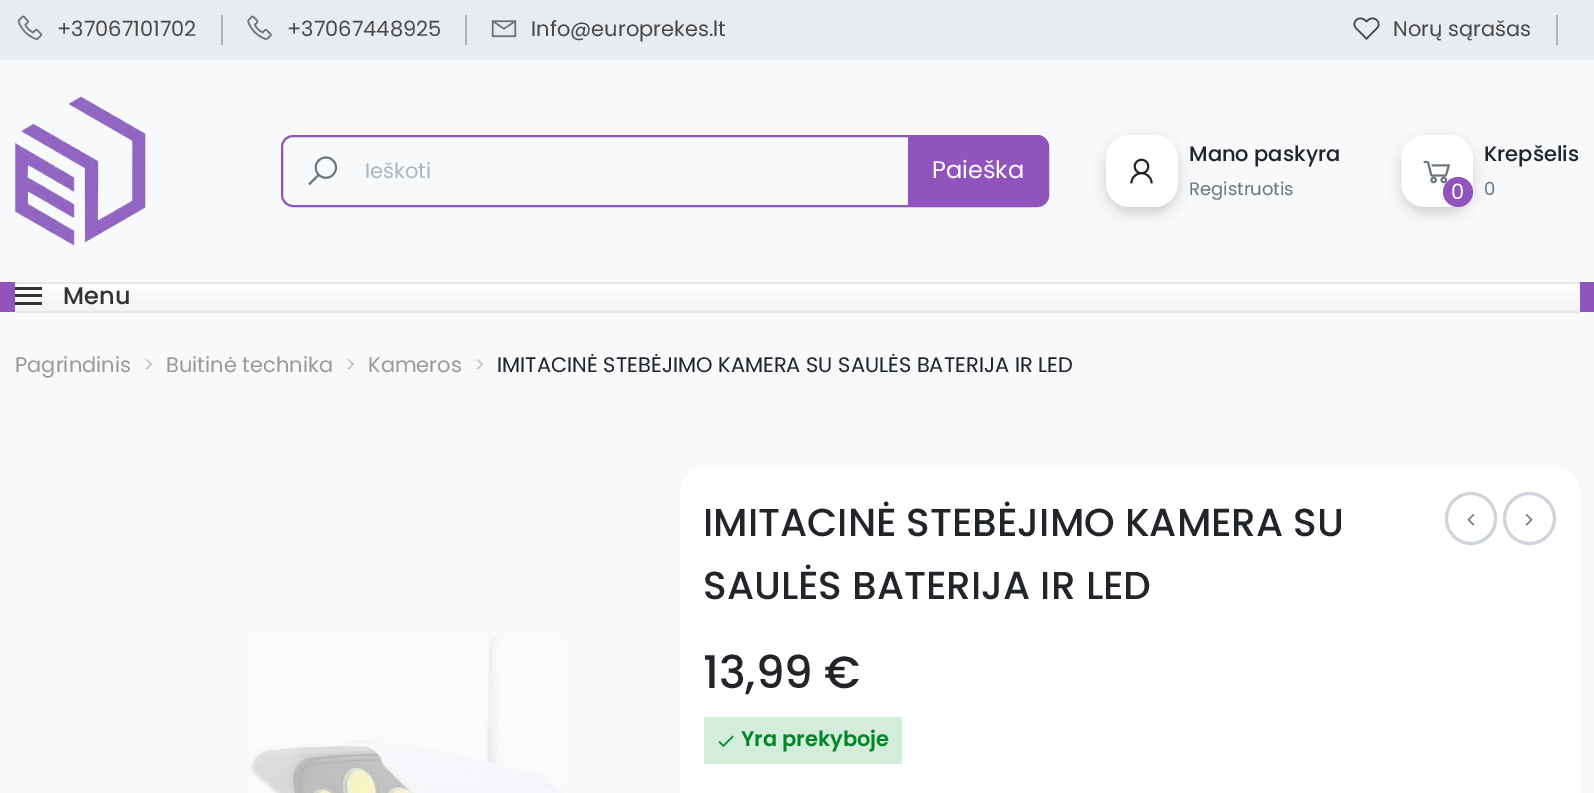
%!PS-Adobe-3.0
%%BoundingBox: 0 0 1594 793
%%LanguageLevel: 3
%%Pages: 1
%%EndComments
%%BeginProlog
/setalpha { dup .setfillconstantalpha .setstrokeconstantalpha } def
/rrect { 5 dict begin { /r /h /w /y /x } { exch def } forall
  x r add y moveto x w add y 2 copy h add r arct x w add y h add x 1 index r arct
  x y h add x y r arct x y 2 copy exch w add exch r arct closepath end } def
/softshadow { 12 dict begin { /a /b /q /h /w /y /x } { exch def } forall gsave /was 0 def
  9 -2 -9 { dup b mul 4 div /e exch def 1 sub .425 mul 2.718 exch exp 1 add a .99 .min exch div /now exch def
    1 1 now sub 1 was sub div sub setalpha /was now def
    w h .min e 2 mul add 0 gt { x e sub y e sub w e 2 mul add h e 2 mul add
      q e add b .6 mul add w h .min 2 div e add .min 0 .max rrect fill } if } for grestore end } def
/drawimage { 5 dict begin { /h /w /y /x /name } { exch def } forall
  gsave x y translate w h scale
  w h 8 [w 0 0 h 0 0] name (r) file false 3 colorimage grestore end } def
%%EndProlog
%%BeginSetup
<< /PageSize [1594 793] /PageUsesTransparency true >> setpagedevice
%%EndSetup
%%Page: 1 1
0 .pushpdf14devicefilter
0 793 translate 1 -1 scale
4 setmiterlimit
0.973 0.976 0.98 setrgbcolor
0 0 1594 793 rectfill
0.914 0.925 0.937 setrgbcolor
0 0 1594 60 rectfill
(images/1.raw) 17 15 26 25 drawimage
0.678 0.71 0.741 setrgbcolor
221 15 2 30 rectfill
(images/2.raw) 247 15 25 25 drawimage
465 15 2 30 rectfill
(images/3.raw) 491 20 26 18 drawimage
(images/4.raw) 1353 17 27 23 drawimage
1556 15 2 30 rectfill
(images/5.raw) 15 96 131 150 drawimage
0.565 0.329 0.737 setrgbcolor
2 setlinewidth
282 136 766 70 11 rrect stroke
(images/6.raw) 308 156 30 30 drawimage
newpath 908 135 moveto 1037 135 lineto 1043.5 135 1049 140.5 1049 147 curveto 1049 195 lineto 1049 201.5 1043.5 207 1037 207 curveto 908 207 lineto closepath fill
0.129 0.145 0.161 setrgbcolor
1106 141 72 72 24 6 0.2 softshadow
1 setgray
1106 135 72 72 24 rrect fill
(images/7.raw) 1130 158 23 26 drawimage
0.129 0.145 0.161 setrgbcolor
1401 141 72 72 24 6 0.2 softshadow
1 setgray
1401 135 72 72 24 rrect fill
(images/8.raw) 1423 160 28 24 drawimage
0.565 0.329 0.737 setrgbcolor
newpath 1458 192 15 0 360 arc closepath fill
0 282 1594 30 rectfill
gsave newpath 15 284 moveto 1580 284 lineto 1580 311 lineto 15 311 lineto closepath clip newpath
<< /ShadingType 2 /ColorSpace /DeviceRGB /Coords [797 283 797 311] /Extend [true true] /Function << /FunctionType 2 /Domain [0 1] /C0 [1 1 1] /C1 [0.949 0.949 0.949] /N 1 >> >> shfill grestore
0.906 setgray
15 282 1565 2 rectfill
15 311 1565 2 rectfill
0.2 setgray
15 287 27 3 rectfill
15 294 27 3 rectfill
15 302 27 3 rectfill
(images/9.raw) 250 638 312 155 drawimage
1 setgray
680 468 900 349 24 rrect fill
0.808 0.831 0.855 setrgbcolor
3 setlinewidth
1446.5 493.5 49 50 24.5 rrect stroke
(images/10.raw) 1467 514 8 12 drawimage
newpath 1529.5 518.5 25 0 360 arc closepath stroke
(images/11.raw) 1525 514 8 12 drawimage
0.831 0.929 0.855 setrgbcolor
704 717 198 47 rectfill
(images/12.raw) 718 735 16 12 drawimage
/Poppins-Regular [21 0 0 -21 0 0] selectfont
0.282 setgray
57 36 moveto (+37067101702) show
287 36 moveto (+37067448925) show
531 36 moveto (Info@europrekes.lt) show
1393 36 moveto (Norų sąrašas) show
0.678 0.71 0.741 setrgbcolor
365 178 moveto (Ieškoti) show
/Poppins-Regular [24 0 0 -24 0 0] selectfont
1 setgray
932 178 moveto (Paieška) show
/Poppins-Medium [21 0 0 -21 0 0] selectfont
0.129 0.145 0.161 setrgbcolor
1189 161 moveto (Mano paskyra) show
/Poppins-Regular [18 0 0 -18 0 0] selectfont
0.424 0.459 0.49 setrgbcolor
1189 195 moveto (Registruotis) show
/Poppins-Regular [21 0 0 -21 0 0] selectfont
1 setgray
1451 199 moveto (0) show
/Poppins-Medium [21 0 0 -21 0 0] selectfont
0.129 0.145 0.161 setrgbcolor
1484 161 moveto (Krepšelis) show
/Poppins-Regular [18 0 0 -18 0 0] selectfont
0.424 0.459 0.49 setrgbcolor
1484 195 moveto (0) show
/Poppins-Medium [24 0 0 -24 0 0] selectfont
0.2 setgray
63 304 moveto (Menu) show
/Poppins-Regular [21 0 0 -21 0 0] selectfont
0.6 setgray
15 372 moveto (Pagrindinis) show
0.753 0.769 0.784 setrgbcolor
143 372 moveto (>) show
0.6 setgray
166 372 moveto (Buitinė technika) show
0.753 0.769 0.784 setrgbcolor
345 372 moveto (>) show
0.6 setgray
368 372 moveto (Kameros) show
0.753 0.769 0.784 setrgbcolor
474 372 moveto (>) show
0.129 0.145 0.161 setrgbcolor
497 372 moveto (IMITACINĖ STEBĖJIMO KAMERA SU SAULĖS BATERIJA IR LED) show
/Poppins-Medium [39 0 0 -39 0 0] selectfont
703 536 moveto (IMITACINĖ STEBĖJIMO KAMERA SU) show
703 599 moveto (SAULĖS BATERIJA IR LED) show
/Poppins-Medium [45 0 0 -45 0 0] selectfont
703 688 moveto (13,99 €) show
/Poppins-SemiBold [21 0 0 -21 0 0] selectfont
0 0.525 0.153 setrgbcolor
741 746 moveto (Yra prekyboje) show
.poppdf14devicefilter showpage
%%EOF
